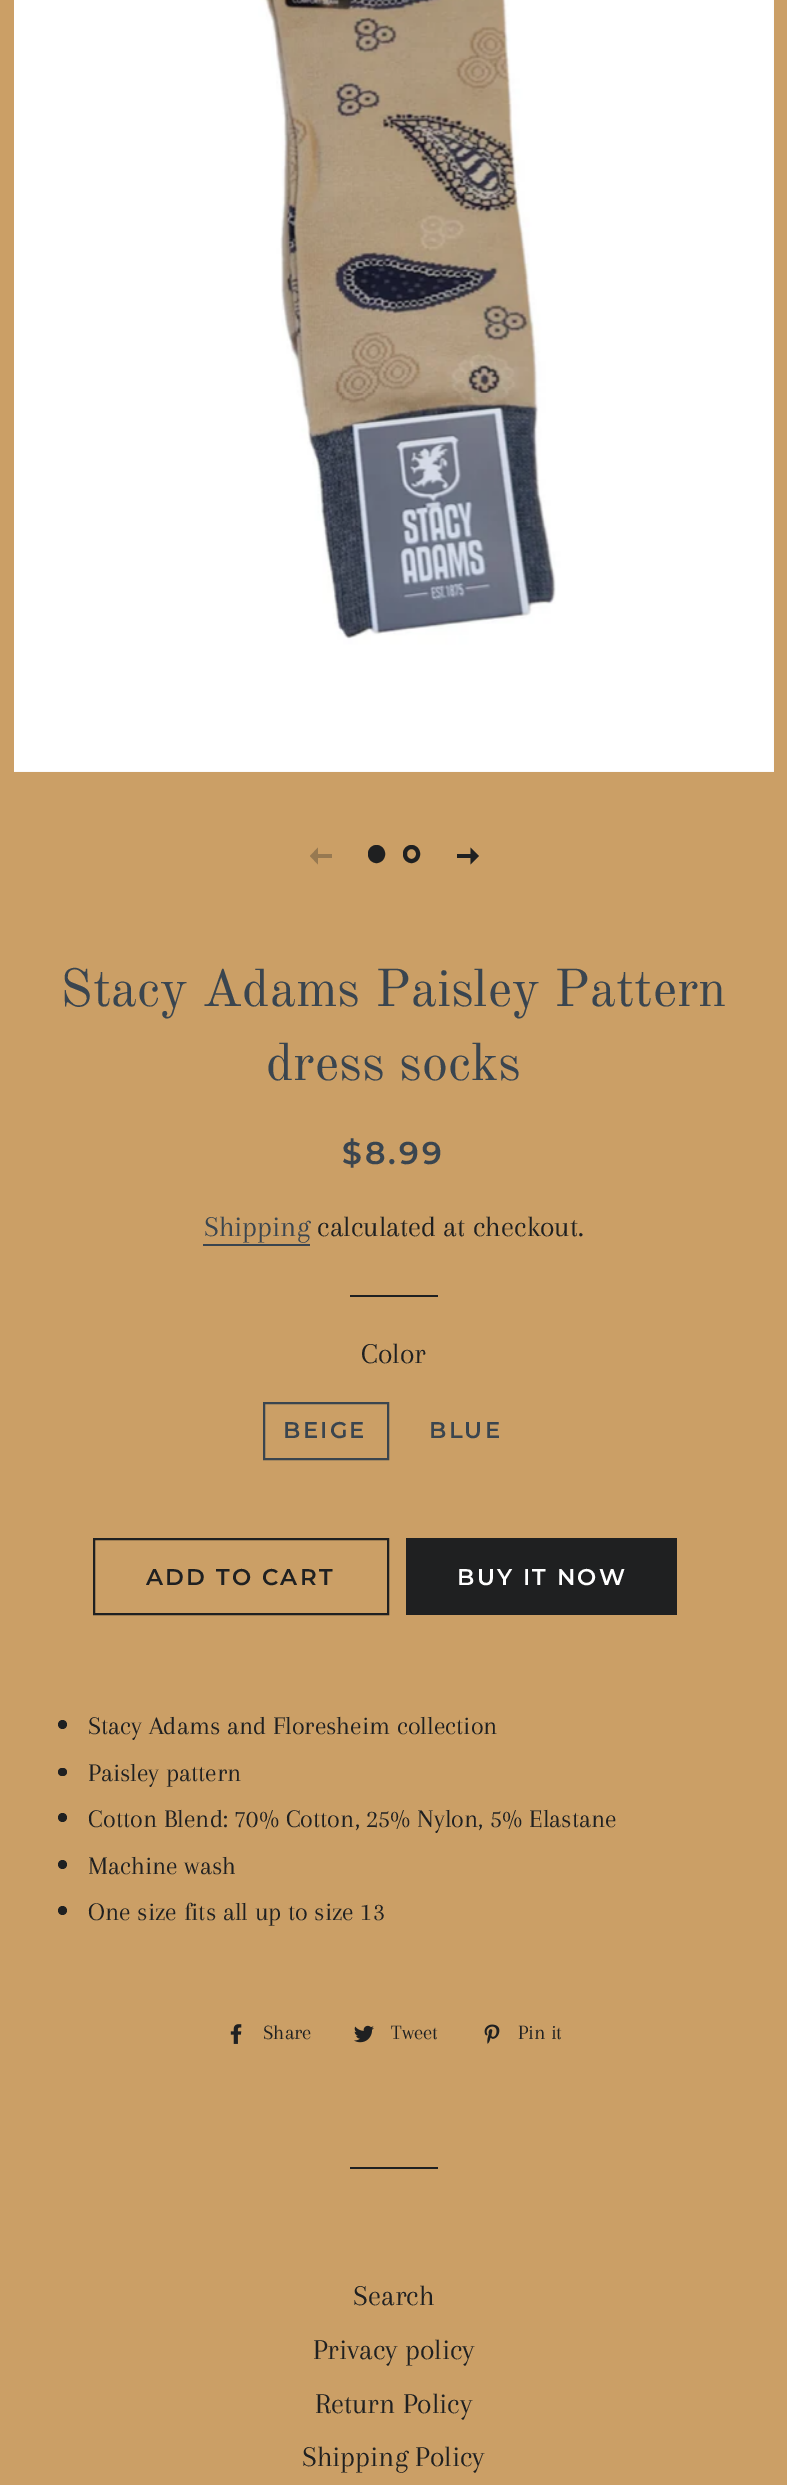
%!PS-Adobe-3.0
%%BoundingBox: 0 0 787 2485
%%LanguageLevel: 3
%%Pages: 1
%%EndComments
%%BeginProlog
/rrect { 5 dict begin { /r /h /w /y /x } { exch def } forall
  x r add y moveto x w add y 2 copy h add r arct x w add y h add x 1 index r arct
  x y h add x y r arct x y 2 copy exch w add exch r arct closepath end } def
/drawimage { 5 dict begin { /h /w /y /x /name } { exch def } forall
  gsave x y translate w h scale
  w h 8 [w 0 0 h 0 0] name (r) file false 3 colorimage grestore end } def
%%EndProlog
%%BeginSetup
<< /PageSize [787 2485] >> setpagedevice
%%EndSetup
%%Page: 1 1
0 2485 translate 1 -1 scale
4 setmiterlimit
0.796 0.624 0.4 setrgbcolor
0 0 787 2485 rectfill
0.965 setgray
14 0 760 772 rectfill
(images/1.raw) 14 0 760 772 drawimage
0.592 0.475 0.318 setrgbcolor
newpath 310 856 moveto 318 864.5 lineto 318 858 lineto 332 858 lineto 332 854 lineto 318 854 lineto 318 847.5 lineto closepath fill
0.122 0.125 0.129 setrgbcolor
370 847 13 14 6.5 rrect gsave fill grestore
4 setlinewidth
stroke
405 847 13 14 6.5 rrect stroke
newpath 479 856 moveto 470.5 847.5 lineto 470.5 854 lineto 457 854 lineto 457 858 lineto 470.5 858 lineto 470.5 864.5 lineto closepath fill
0.227 0.271 0.31 setrgbcolor
203 1244 107 2 rectfill
0.122 0.125 0.129 setrgbcolor
350 1295 88 2 rectfill
0.227 0.271 0.31 setrgbcolor
2 setlinewidth
264 1403 124 56 rectstroke
0.122 0.125 0.129 setrgbcolor
94 1539 294 75 rectstroke
406 1538 271 77 rectfill
newpath 62.5 1724.5 4.5 0 360 arc closepath fill
58 1768 9 8 4 rrect fill
newpath 62.5 1817.5 4.5 0 360 arc closepath fill
newpath 62.5 1864.5 4.5 0 360 arc closepath fill
newpath 62.5 1910.5 4.5 0 360 arc closepath fill
(images/2.raw) 230 2024 12 20 drawimage
(images/3.raw) 354 2025 20 18 drawimage
(images/4.raw) 484 2024 16 20 drawimage
350 2167 88 2 rectfill
/OldStandardTT-Regular [52.5 0 0 -52.5 0 0] selectfont
0.227 0.271 0.31 setrgbcolor
60 1006 moveto (Stacy Adams Paisley Pattern) show
266 1080 moveto (dress socks) show
/Montserrat-SemiBold [31.5 0 0 -31.5 0 0] selectfont
342 1164 moveto 3 0 ($8.99) ashow
/Arapey-Regular [29.75 0 0 -29.75 0 0] selectfont
204 1236 moveto (Shipping) show
0.122 0.125 0.129 setrgbcolor
317 1236 moveto (calculated at checkout.) show
361 1363 moveto (Color) show
/Montserrat-SemiBold [22.75 0 0 -22.75 0 0] selectfont
0.227 0.271 0.31 setrgbcolor
283 1438 moveto 2.25 0 (BEIGE) ashow
429 1438 moveto 2.25 0 (BLUE) ashow
0.122 0.125 0.129 setrgbcolor
146 1585 moveto 2.25 0 (ADD TO CART) ashow
1 setgray
457 1585 moveto 2.25 0 (BUY IT NOW) ashow
/Arapey-Regular [26.25 0 0 -26.25 0 0] selectfont
0.122 0.125 0.129 setrgbcolor
88 1734 moveto (Stacy Adams and Floresheim collection) show
88 1781 moveto (Paisley pattern) show
88 1827 moveto (Cotton Blend: 70% Cotton, 25% Nylon, 5% Elastane) show
88 1874 moveto (Machine wash) show
88 1920 moveto (One size fits all up to size 13) show
/Arapey-Regular [21 0 0 -21 0 0] selectfont
263 2039 moveto (Share) show
391 2039 moveto (Tweet) show
518 2039 moveto (Pin it) show
/Arapey-Regular [29.75 0 0 -29.75 0 0] selectfont
353 2305 moveto (Search) show
313 2359 moveto (Privacy policy) show
315 2413 moveto (Return Policy) show
302 2466 moveto (Shipping Policy) show
showpage
%%EOF
